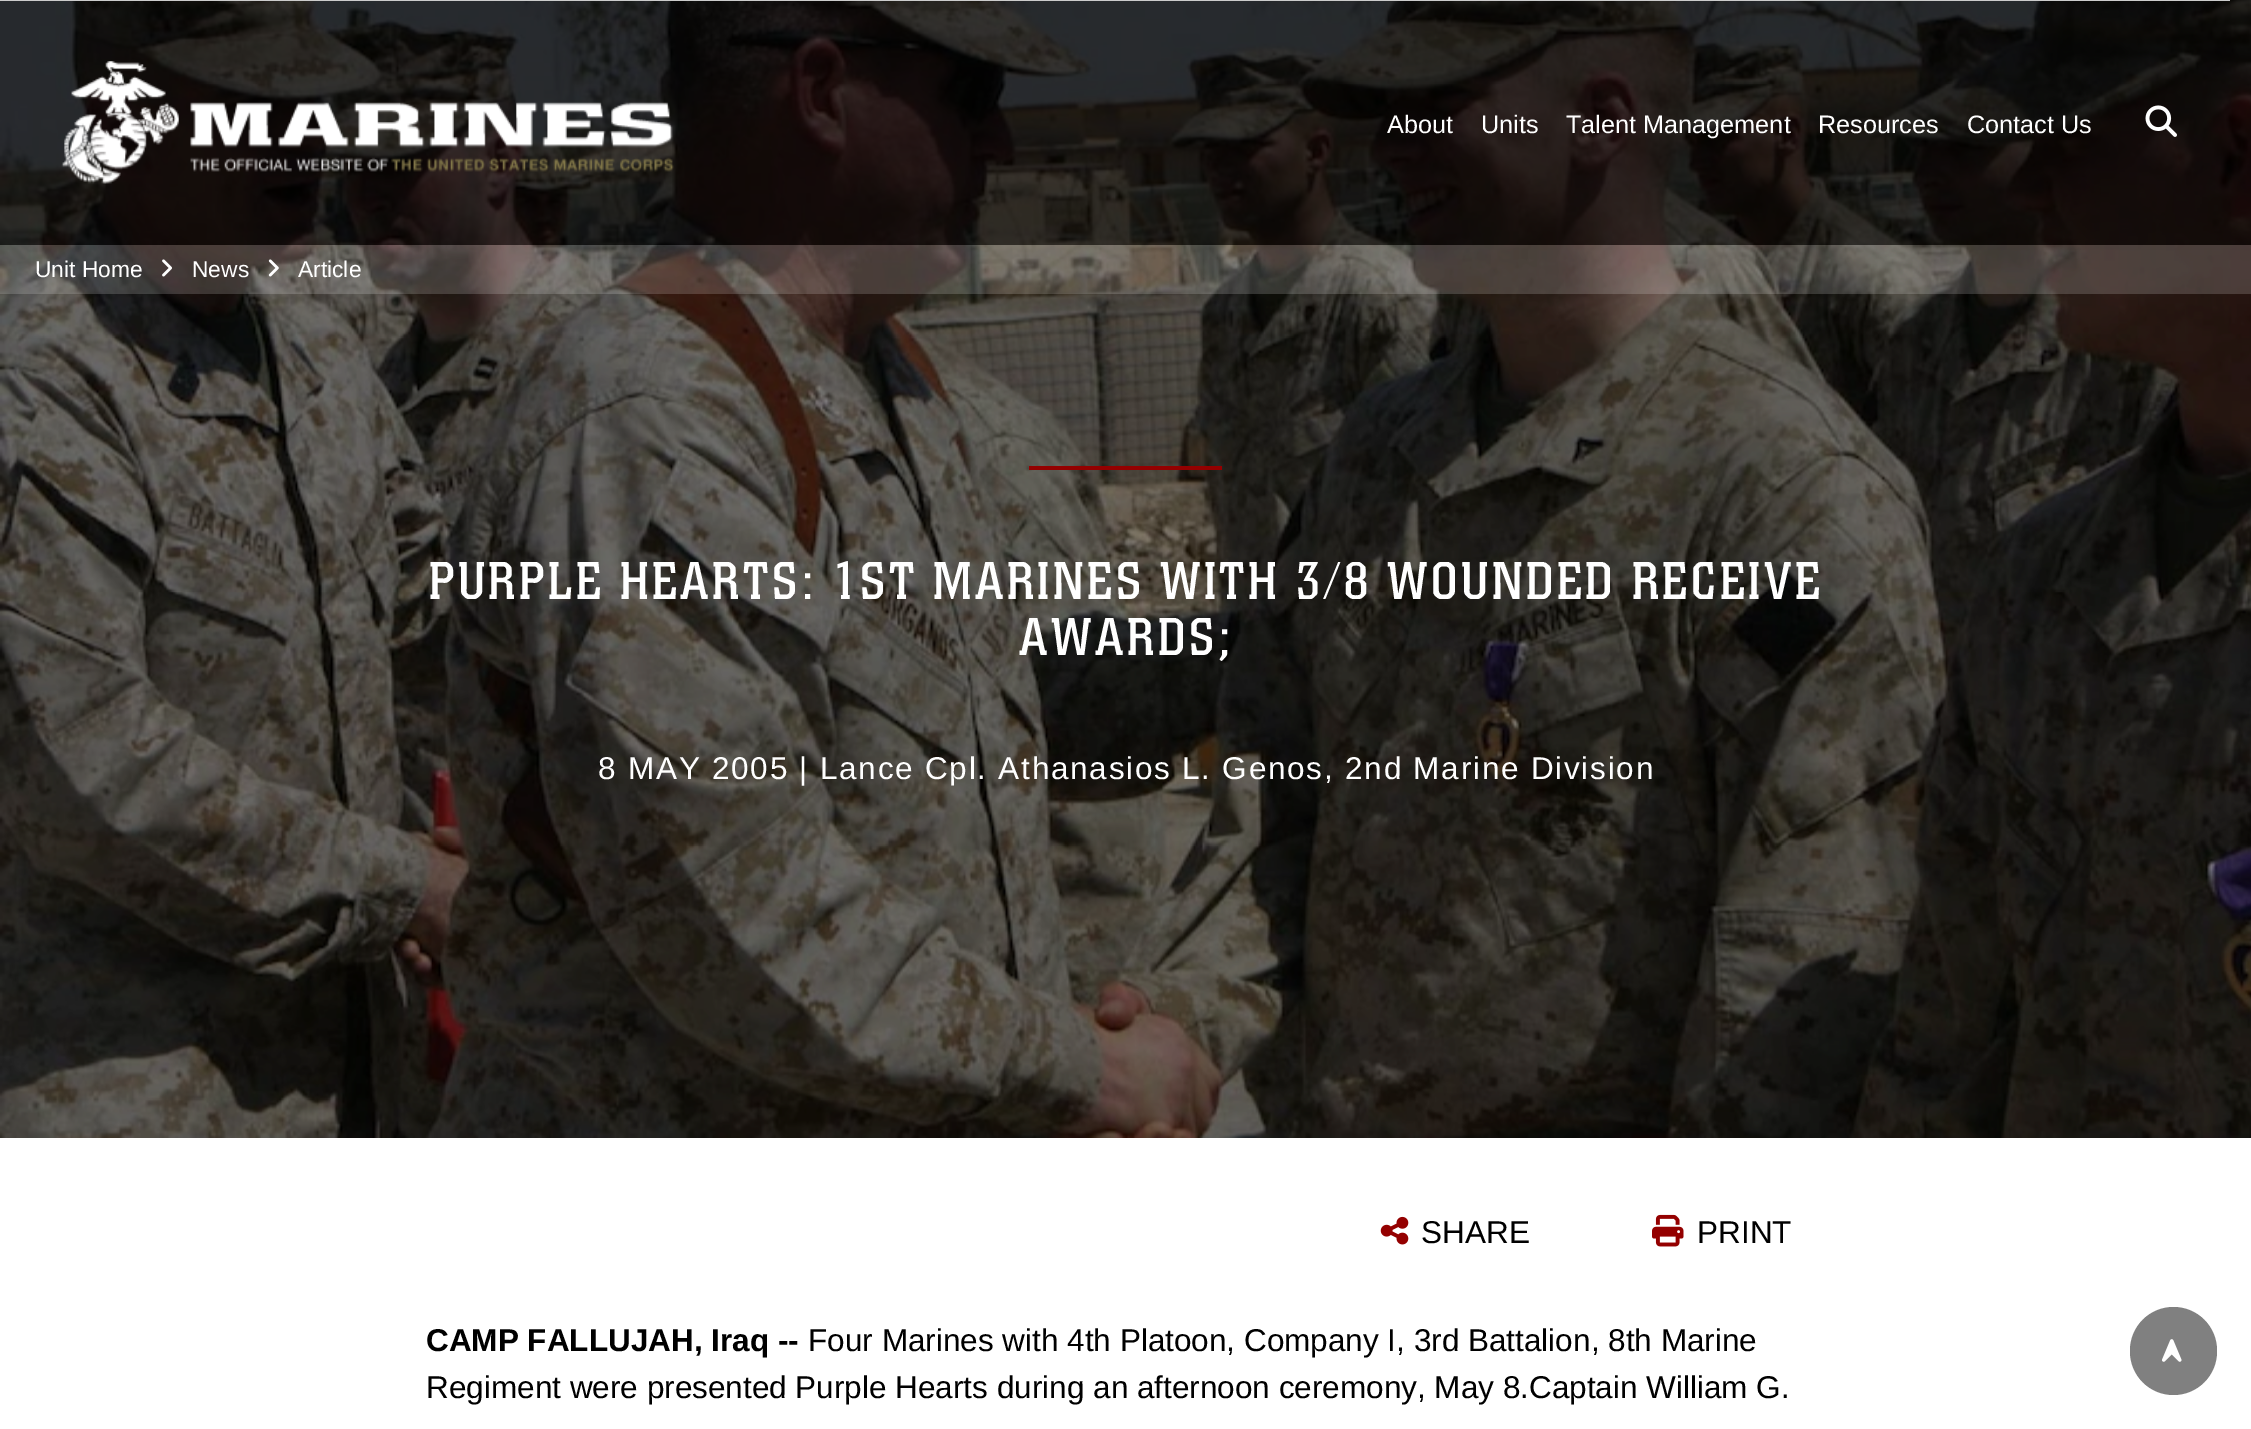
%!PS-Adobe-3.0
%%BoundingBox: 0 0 2251 1429
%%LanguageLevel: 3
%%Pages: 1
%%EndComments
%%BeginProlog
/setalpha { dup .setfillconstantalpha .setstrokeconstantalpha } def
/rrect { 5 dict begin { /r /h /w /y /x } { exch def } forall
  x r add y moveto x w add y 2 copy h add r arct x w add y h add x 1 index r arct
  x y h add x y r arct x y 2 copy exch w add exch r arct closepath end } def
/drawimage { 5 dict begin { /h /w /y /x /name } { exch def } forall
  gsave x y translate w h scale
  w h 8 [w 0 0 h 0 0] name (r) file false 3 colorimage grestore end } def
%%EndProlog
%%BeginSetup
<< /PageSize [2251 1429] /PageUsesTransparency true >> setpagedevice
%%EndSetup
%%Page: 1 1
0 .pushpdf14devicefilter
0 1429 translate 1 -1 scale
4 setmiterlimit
1 setgray
0 0 2251 1429 rectfill
(images/5.raw) 0 0 2251 1138 drawimage
0.5 setalpha
0 setgray
0 0 2251 245 rectfill
1 setalpha
0.8 setgray
0 0 2230 1 rectfill
(images/1.raw) 61 61 613 123 drawimage
(images/2.raw) 2145 105 32 32 drawimage
0.17 setalpha
1 setgray
0 245 2251 49 rectfill
1 setalpha
(images/3.raw) 162 259 10 18 drawimage
(images/4.raw) 268 259 11 18 drawimage
0.58 0 0 setrgbcolor
1029 466 193 4 rectfill
(images/6.raw) 1380 1216 29 29 drawimage
(images/7.raw) 1652 1214 32 33 drawimage
0.502 setgray
2130 1307 87 88 43.5 rrect fill
(images/8.raw) 2162 1339 20 23 drawimage
/LiberationSans-Regular [25.25 0 0 -25.25 0 0] selectfont
1 setgray
1387 133 moveto (About) show
1481 133 moveto (Units) show
1566 133 moveto (Talent Management) show
1818 133 moveto (Resources) show
1967 133 moveto (Contact Us) show
/LiberationSans-Regular [22.75 0 0 -22.75 0 0] selectfont
35 277 moveto (Unit Home) show
192 277 moveto (News) show
298 277 moveto (Article) show
/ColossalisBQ-Regular [52.5 0 0 -52.5 0 0] selectfont
429 599 moveto 3.5 0 (PURPLE HEARTS: 1ST MARINES WITH 3/8 WOUNDED RECEIVE) ashow
1019 655 moveto 3.5 0 (AWARDS;) ashow
/LiberationSans-Regular [31.5 0 0 -31.5 0 0] selectfont
598 779 moveto 1.75 0 (8 MAY 2005 | Lance Cpl. Athanasios L. Genos, 2nd Marine Division) ashow
0 setgray
1421 1243 moveto (SHARE) show
1697 1243 moveto (PRINT) show
/LiberationSans-Bold [31.5 0 0 -31.5 0 0] selectfont
426 1351 moveto (CAMP FALLUJAH, Iraq --) show
/LiberationSans-Regular [31.5 0 0 -31.5 0 0] selectfont
808 1351 moveto (Four Marines with 4th Platoon, Company I, 3rd Battalion, 8th Marine) show
426 1398 moveto (Regiment were presented Purple Hearts during an afternoon ceremony, May 8.Captain William G.) show
.poppdf14devicefilter showpage
%%EOF
